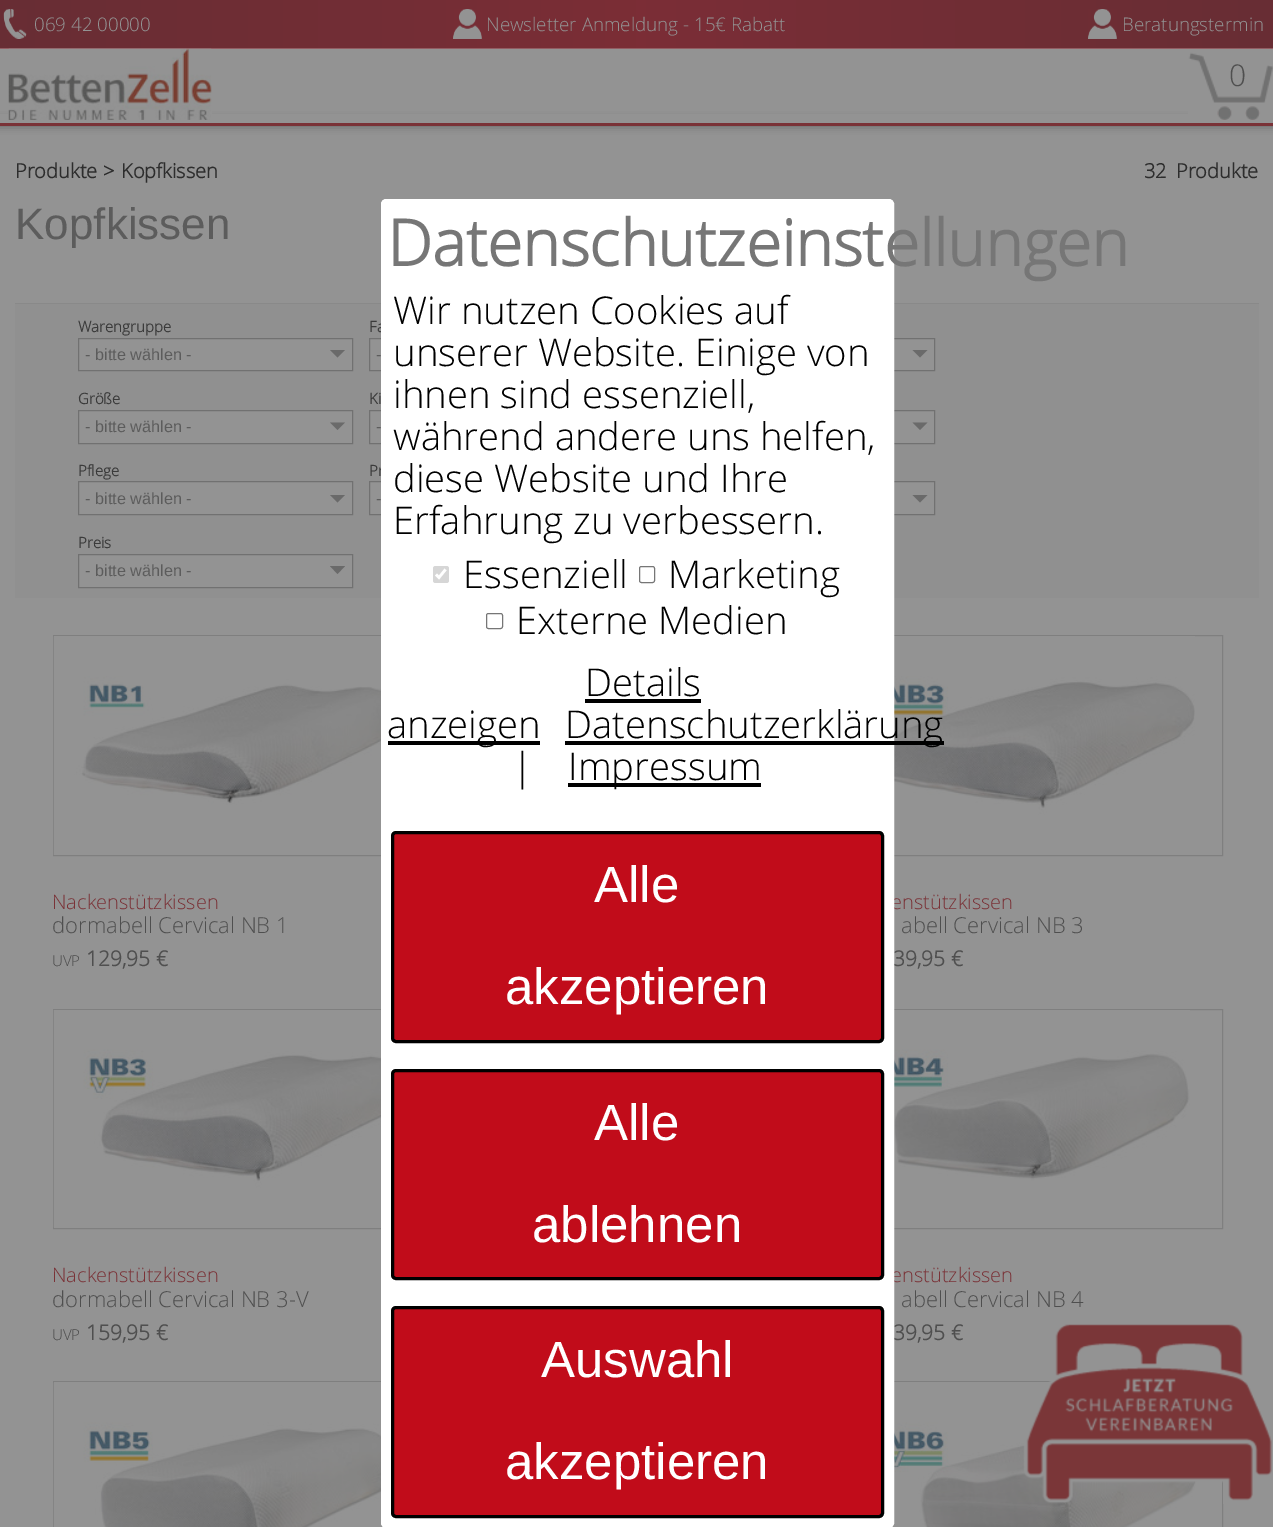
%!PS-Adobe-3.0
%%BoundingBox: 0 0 1273 1527
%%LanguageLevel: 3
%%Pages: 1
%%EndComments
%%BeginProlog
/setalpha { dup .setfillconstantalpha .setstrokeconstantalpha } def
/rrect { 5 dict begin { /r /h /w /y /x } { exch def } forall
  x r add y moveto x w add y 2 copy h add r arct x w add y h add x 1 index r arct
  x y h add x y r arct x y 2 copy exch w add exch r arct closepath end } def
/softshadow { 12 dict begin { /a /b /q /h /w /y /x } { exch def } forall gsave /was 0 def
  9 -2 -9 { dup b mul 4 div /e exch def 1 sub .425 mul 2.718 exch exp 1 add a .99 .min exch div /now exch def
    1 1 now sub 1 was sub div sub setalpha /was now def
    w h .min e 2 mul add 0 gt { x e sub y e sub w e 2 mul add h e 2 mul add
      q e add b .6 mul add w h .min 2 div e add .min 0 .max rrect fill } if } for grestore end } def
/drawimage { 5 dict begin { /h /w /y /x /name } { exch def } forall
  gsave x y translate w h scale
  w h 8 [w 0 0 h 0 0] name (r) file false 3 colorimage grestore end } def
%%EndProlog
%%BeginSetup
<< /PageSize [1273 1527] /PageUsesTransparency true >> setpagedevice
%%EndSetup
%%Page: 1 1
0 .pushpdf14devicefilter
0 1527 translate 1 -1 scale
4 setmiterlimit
0.576 setgray
0 0 1273 1527 rectfill
0.388 setgray
-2 120 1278 6 0 4 1 softshadow
0.576 setgray
0 114 1273 9 rectfill
gsave newpath 0 0 moveto 1273 0 lineto 1273 48 lineto 0 48 lineto closepath clip newpath
<< /ShadingType 2 /ColorSpace /DeviceRGB /Coords [0 24 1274 24] /Extend [true true] /Function << /FunctionType 3 /Domain [0 1] /Functions [<< /FunctionType 2 /Domain [0 1] /C0 [0.408 0.176 0.204] /C1 [0.482 0.176 0.212] /N 1 >> << /FunctionType 2 /Domain [0 1] /C0 [0.482 0.176 0.212] /C1 [0.408 0.176 0.204] /N 1 >>] /Bounds [0.5] /Encode [0 1 0 1] >> >> shfill grestore
0.573 0.365 0.388 setrgbcolor
0 48 1273 1 rectfill
(images/1.raw) 3 9 24 30 drawimage
(images/2.raw) 453 9 29 30 drawimage
(images/3.raw) 1088 9 29 30 drawimage
(images/4.raw) 8 48 204 72 drawimage
(images/5.raw) 1188 52 85 68 drawimage
0.478 0.196 0.216 setrgbcolor
0 123 1273 3 rectfill
0.565 setgray
15 304 1244 294 rectfill
0.537 setgray
15 303 1244 1 rectfill
0.576 setgray
newpath 78.5 338.5 moveto 352.5 338.5 lineto 352.5 370.5 lineto 78.5 370.5 lineto closepath gsave fill grestore
0.443 setgray
stroke
0.416 setgray
newpath 330 350 moveto 345 350 lineto 337.5 357.5 lineto closepath fill
0.576 setgray
370 339 11 31 rectfill
0.443 setgray
369.5 338.5 274 32 rectstroke
0.576 setgray
894 339 40 31 rectfill
0.443 setgray
660.5 338.5 274 32 rectstroke
0.416 setgray
newpath 912.5 350 moveto 927.5 350 lineto 920 357.5 lineto closepath fill
0.576 setgray
newpath 78.5 410.5 moveto 352.5 410.5 lineto 352.5 443.5 lineto 78.5 443.5 lineto closepath gsave fill grestore
0.443 setgray
stroke
0.416 setgray
newpath 330 422.5 moveto 345 422.5 lineto 337.5 430 lineto closepath fill
0.576 setgray
370 411 11 32 rectfill
0.443 setgray
369.5 410.5 274 33 rectstroke
0.576 setgray
894 411 40 32 rectfill
0.443 setgray
660.5 410.5 274 33 rectstroke
0.416 setgray
newpath 912.5 422.5 moveto 927.5 422.5 lineto 920 430 lineto closepath fill
0.576 setgray
newpath 78.5 481.5 moveto 352.5 481.5 lineto 352.5 514.5 lineto 78.5 514.5 lineto closepath gsave fill grestore
0.443 setgray
stroke
0.416 setgray
newpath 330 495 moveto 345 495 lineto 337.5 502.5 lineto closepath fill
0.576 setgray
370 482 11 32 rectfill
0.443 setgray
369.5 481.5 274 33 rectstroke
0.576 setgray
894 482 40 32 rectfill
0.443 setgray
660.5 481.5 274 33 rectstroke
0.416 setgray
newpath 912.5 495 moveto 927.5 495 lineto 920 502.5 lineto closepath fill
0.576 setgray
newpath 78.5 554.5 moveto 352.5 554.5 lineto 352.5 587.5 lineto 78.5 587.5 lineto closepath gsave fill grestore
0.443 setgray
stroke
0.416 setgray
newpath 330 566 moveto 345 566 lineto 337.5 574 lineto closepath fill
0.498 setgray
53.5 635.5 374 220 rectstroke
(images/6.raw) 53 636 328 219 drawimage
848.5 635.5 374 220 rectstroke
(images/7.raw) 894 636 301 219 drawimage
53.5 1009.5 374 219 rectstroke
(images/8.raw) 53 1010 328 218 drawimage
848.5 1009.5 374 219 rectstroke
(images/9.raw) 894 1010 296 218 drawimage
53.5 1381.5 374 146 rectstroke
(images/10.raw) 53 1382 330 145 drawimage
848.5 1381.5 374 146 rectstroke
(images/11.raw) 892 1382 305 145 drawimage
(images/12.raw) 1023 1324 249 180 drawimage
/OpenSans-Light [18.75 0 0 -18.75 0 0] selectfont
0.576 setgray
34 31 moveto (069 42 00000) show
486 31 moveto (Newsletter Anmeldung - 15€ Rabatt) show
1122 31 moveto (Beratungstermin) show
/OpenSans-Light [30 0 0 -30 0 0] selectfont
0.31 setgray
1229 86 moveto (0) show
/OpenSans-Bold [20 0 0 -20 0 0] selectfont
0.176 setgray
15 178 moveto (Produkte) show
103 178 moveto (>) show
121 178 moveto (Kopfkissen) show
1144 178 moveto (32) show
1176 178 moveto (Produkte) show
/LiberationSans-Regular [44 0 0 -44 0 0] selectfont
0.361 setgray
15 239 moveto (Kopfkissen) show
/OpenSans-Bold [15 0 0 -15 0 0] selectfont
0.231 setgray
78 332 moveto (Warengruppe) show
/LiberationSans-Regular [16.25 0 0 -16.25 0 0] selectfont
0.361 setgray
85 360 moveto (- bitte wählen -) show
/OpenSans-Bold [15 0 0 -15 0 0] selectfont
0.231 setgray
369 332 moveto (Fa) show
/LiberationSans-Regular [16.25 0 0 -16.25 0 0] selectfont
0.361 setgray
376 360 moveto (-) show
/OpenSans-Bold [15 0 0 -15 0 0] selectfont
0.231 setgray
78 404 moveto (Größe) show
/LiberationSans-Regular [16.25 0 0 -16.25 0 0] selectfont
0.361 setgray
85 432 moveto (- bitte wählen -) show
/OpenSans-Bold [15 0 0 -15 0 0] selectfont
0.231 setgray
369 404 moveto (Ki) show
/LiberationSans-Regular [16.25 0 0 -16.25 0 0] selectfont
0.361 setgray
376 432 moveto (-) show
/OpenSans-Bold [15 0 0 -15 0 0] selectfont
0.231 setgray
78 476 moveto (Pflege) show
/LiberationSans-Regular [16.25 0 0 -16.25 0 0] selectfont
0.361 setgray
85 504 moveto (- bitte wählen -) show
/OpenSans-Bold [15 0 0 -15 0 0] selectfont
0.231 setgray
369 476 moveto (Pr) show
/LiberationSans-Regular [16.25 0 0 -16.25 0 0] selectfont
0.361 setgray
376 504 moveto (-) show
/OpenSans-Bold [15 0 0 -15 0 0] selectfont
0.231 setgray
78 548 moveto (Preis) show
/LiberationSans-Regular [16.25 0 0 -16.25 0 0] selectfont
0.361 setgray
85 576 moveto (- bitte wählen -) show
/OpenSans-Light [20 0 0 -20 0 0] selectfont
0.478 0.196 0.216 setrgbcolor
52 909 moveto (Nackenstützkissen) show
/OpenSans-Light [22 0 0 -22 0 0] selectfont
0.31 setgray
52 933 moveto (dormabell Cervical NB 1) show
/OpenSans-Light [15 0 0 -15 0 0] selectfont
0.286 setgray
52 966 moveto (UVP) show
/OpenSans-Bold [21 0 0 -21 0 0] selectfont
0.31 setgray
86 966 moveto (129,95 €) show
/OpenSans-Light [20 0 0 -20 0 0] selectfont
0.478 0.196 0.216 setrgbcolor
891 909 moveto (enstützkissen) show
/OpenSans-Light [22 0 0 -22 0 0] selectfont
0.31 setgray
901 933 moveto (abell Cervical NB 3) show
/OpenSans-Bold [21 0 0 -21 0 0] selectfont
893 966 moveto (39,95 €) show
/OpenSans-Light [20 0 0 -20 0 0] selectfont
0.478 0.196 0.216 setrgbcolor
52 1282 moveto (Nackenstützkissen) show
/OpenSans-Light [22 0 0 -22 0 0] selectfont
0.31 setgray
52 1307 moveto (dormabell Cervical NB 3-V) show
/OpenSans-Light [15 0 0 -15 0 0] selectfont
0.286 setgray
52 1340 moveto (UVP) show
/OpenSans-Bold [21 0 0 -21 0 0] selectfont
0.31 setgray
86 1340 moveto (159,95 €) show
/OpenSans-Light [20 0 0 -20 0 0] selectfont
0.478 0.196 0.216 setrgbcolor
891 1282 moveto (enstützkissen) show
/OpenSans-Light [22 0 0 -22 0 0] selectfont
0.31 setgray
901 1307 moveto (abell Cervical NB 4) show
/OpenSans-Bold [21 0 0 -21 0 0] selectfont
893 1340 moveto (39,95 €) show
1 setgray
381.5 199.5 512 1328 4.5 rrect gsave fill grestore
stroke
/OpenSans-Bold [63.75 0 0 -63.75 0 0] selectfont
0.463 setgray
387 266 moveto (Datenschutzeinstellungen) show
/OpenSans-Light [38.25 0 0 -38.25 0 0] selectfont
0 setgray
393 324 moveto (Wir nutzen Cookies auf) show
393 366 moveto (unserer Website. Einige von) show
393 408 moveto (ihnen sind essenziell,) show
393 450 moveto (während andere uns helfen,) show
393 492 moveto (diese Website und Ihre) show
393 534 moveto (Erfahrung zu verbessern.) show
0.839 setgray
433 566 16 17 2.5 rrect fill
1 setgray
2.6 setlinewidth
newpath 436 574.5 moveto 439 577.5 lineto 445.5 569.5 lineto stroke
0 setgray
463 588 moveto (Essenziell) show
0.463 setgray
1 setlinewidth
639.5 566.5 15 16 2 rrect stroke
0 setgray
668 588 moveto (Marketing) show
0.463 setgray
486.5 613.5 16 15 2 rrect stroke
0 setgray
516 634 moveto (Externe Medien) show
585 696 moveto (Details) show
585 699 116 4 rectfill
388 741 152 4 rectfill
387 738 moveto (anzeigen) show
565 741 379 4 rectfill
565 738 moveto (Datenschutzerklärung) show
512 780 moveto (|) show
568 783 193 4 rectfill
568 780 moveto (Impressum) show
0.757 0.047 0.102 setrgbcolor
392.5 832.5 490 209 3.5 rrect gsave fill grestore
0 setgray
3 setlinewidth
stroke
/LiberationSans-Regular [51 0 0 -51 0 0] selectfont
1 setgray
594 902 moveto (Alle) show
505 1004 moveto (akzeptieren) show
0.757 0.047 0.102 setrgbcolor
392.5 1070.5 490 208 3.5 rrect gsave fill grestore
0 setgray
stroke
1 setgray
594 1140 moveto (Alle) show
532 1242 moveto (ablehnen) show
0.757 0.047 0.102 setrgbcolor
392.5 1307.5 490 209 3.5 rrect gsave fill grestore
0 setgray
stroke
1 setgray
541 1377 moveto (Auswahl) show
505 1479 moveto (akzeptieren) show
.poppdf14devicefilter showpage
%%EOF
